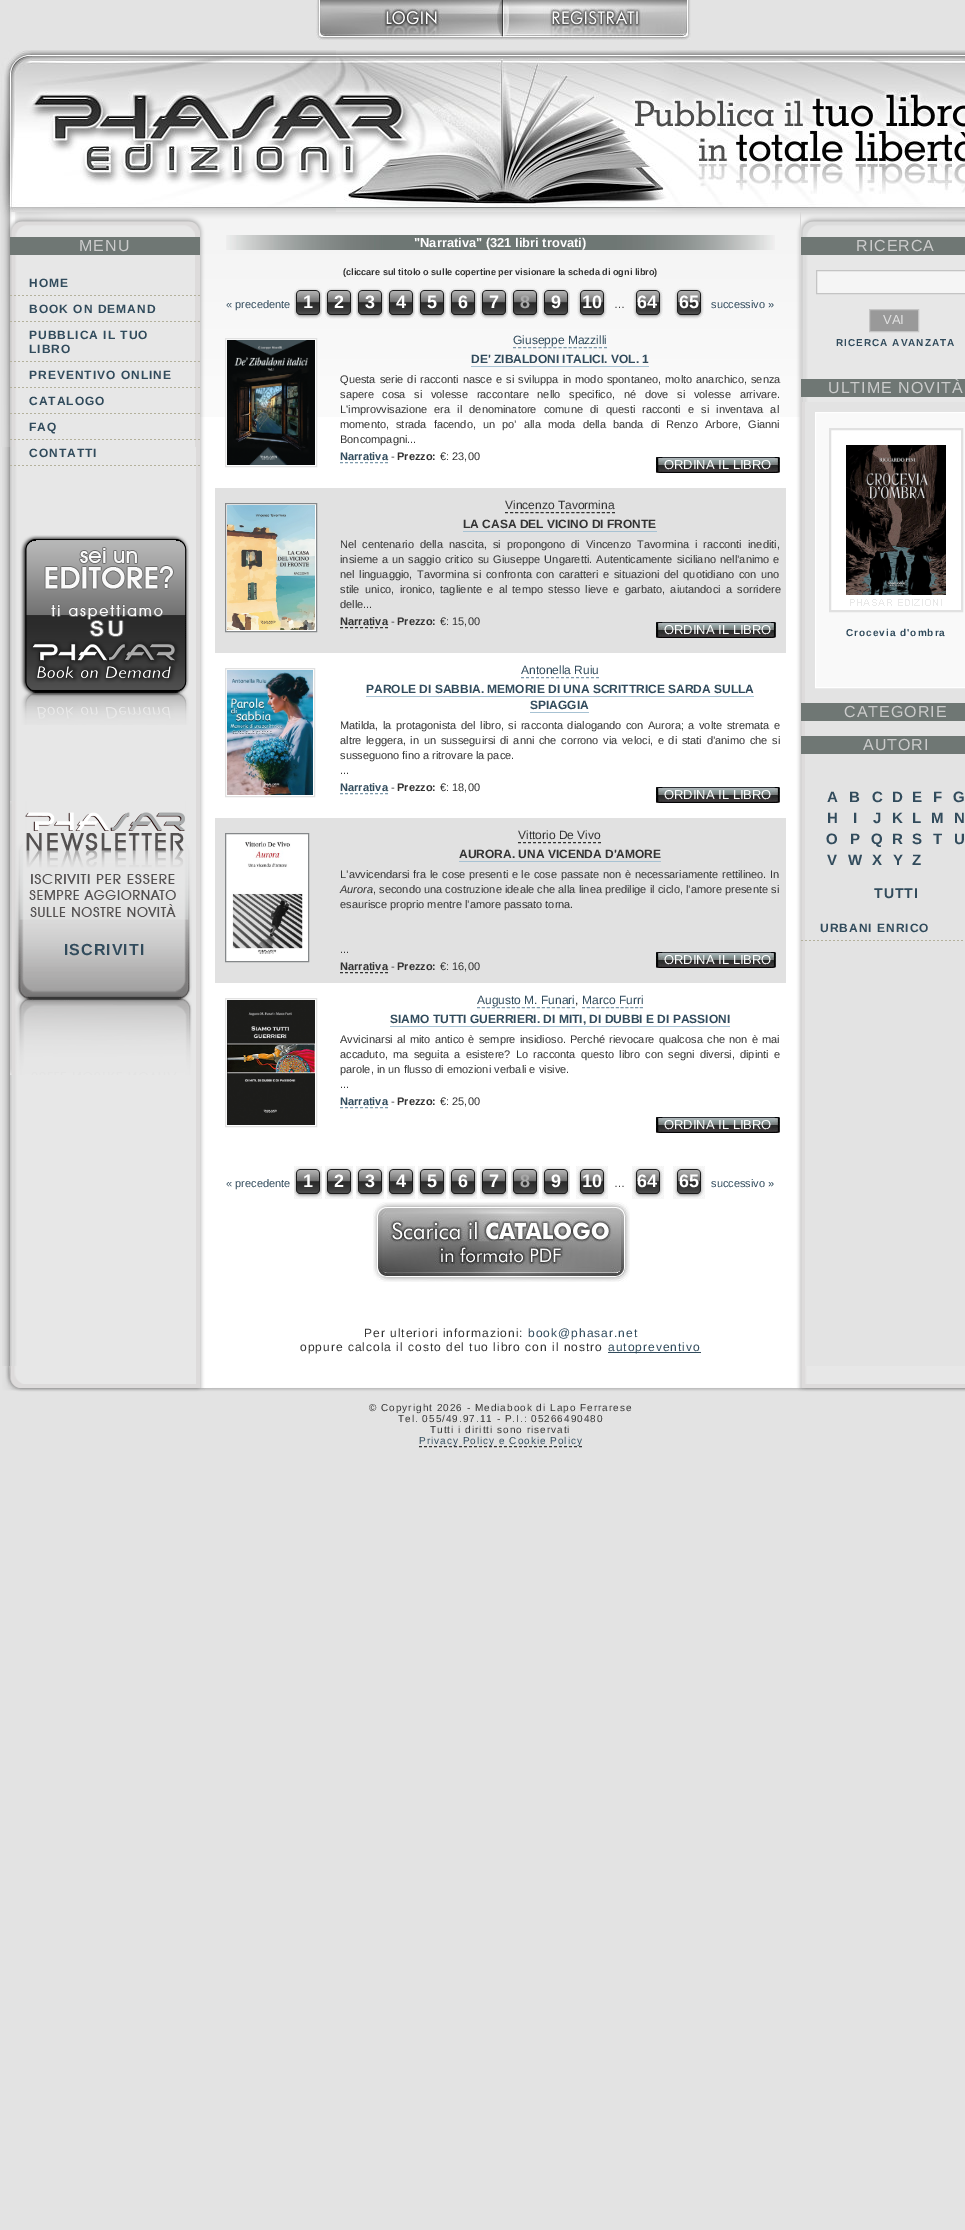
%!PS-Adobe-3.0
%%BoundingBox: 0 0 965 2230
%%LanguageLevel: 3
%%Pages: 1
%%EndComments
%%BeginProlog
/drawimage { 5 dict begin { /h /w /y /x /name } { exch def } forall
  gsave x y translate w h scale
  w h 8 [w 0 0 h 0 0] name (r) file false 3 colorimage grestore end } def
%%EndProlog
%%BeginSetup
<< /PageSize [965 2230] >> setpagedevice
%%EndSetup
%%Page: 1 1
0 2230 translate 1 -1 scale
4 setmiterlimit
0.89 setgray
0 0 965 2230 rectfill
(images/1.raw) 316 0 187 40 drawimage
(images/2.raw) 503 0 188 40 drawimage
(images/3.raw) 2 212 803 1154 drawimage
(images/4.raw) 0 50 965 162 drawimage
(images/5.raw) 1 212 199 235 drawimage
0.435 0.467 0.455 setrgbcolor
10 237 190 18 rectfill
(images/6.raw) 10 295 190 1 drawimage
(images/6.raw) 10 321 190 1 drawimage
(images/6.raw) 10 361 190 1 drawimage
(images/6.raw) 10 387 190 1 drawimage
(images/6.raw) 10 413 190 1 drawimage
(images/6.raw) 10 439 190 1 drawimage
(images/7.raw) 10 465 190 1 drawimage
(images/8.raw) 20 535 169 190 drawimage
(images/9.raw) 10 801 182 274 drawimage
(images/10.raw) 200 212 600 205 drawimage
(images/11.raw) 226 235 549 15 drawimage
(images/12.raw) 294 288 28 31 drawimage
(images/12.raw) 325 288 28 31 drawimage
(images/12.raw) 356 288 28 31 drawimage
(images/12.raw) 387 288 28 31 drawimage
(images/12.raw) 418 288 28 31 drawimage
(images/12.raw) 449 288 28 31 drawimage
(images/12.raw) 480 288 28 31 drawimage
(images/12.raw) 511 288 28 31 drawimage
(images/12.raw) 542 288 28 31 drawimage
(images/13.raw) 577 288 30 31 drawimage
(images/13.raw) 633 288 30 31 drawimage
(images/13.raw) 674 288 30 31 drawimage
1 setgray
226 339 90 78 rectfill
0.882 setgray
225.5 338.5 91 128 rectstroke
(images/14.raw) 227 340 88 125 drawimage
0.486 0.6 0.671 setrgbcolor
[3 2.06] 0 setdash
newpath 513 347.5 moveto 607 347.5 lineto stroke
0.655 0.761 0.827 setrgbcolor
471 366 178 1 rectfill
0.486 0.6 0.671 setrgbcolor
[3 2] 0 setdash
newpath 340 462.5 moveto 388 462.5 lineto stroke
(images/15.raw) 656 457 124 16 drawimage
0.882 setgray
215 488 571 165 rectfill
1 setgray
newpath 225.5 503.5 moveto 316.5 503.5 lineto 316.5 631.5 lineto 225.5 631.5 lineto closepath gsave fill grestore
0.522 0.533 0.541 setrgbcolor
[] 0 setdash
stroke
(images/16.raw) 227 505 88 125 drawimage
0.2 setgray
[3 2.1] 0 setdash
newpath 505 512.5 moveto 615 512.5 lineto stroke
0.655 0.761 0.827 setrgbcolor
463 531 194 1 rectfill
0.2 setgray
[3 2] 0 setdash
newpath 340 627.5 moveto 388 627.5 lineto stroke
(images/17.raw) 656 622 120 16 drawimage
0.882 setgray
[] 0 setdash
225.5 668.5 89 128 rectstroke
(images/18.raw) 227 670 86 125 drawimage
0.486 0.6 0.671 setrgbcolor
[3 2] 0 setdash
newpath 521 677.5 moveto 599 677.5 lineto stroke
0.655 0.761 0.827 setrgbcolor
366 696 388 1 rectfill
530 712 59 1 rectfill
0.486 0.6 0.671 setrgbcolor
newpath 340 793.5 moveto 388 793.5 lineto stroke
(images/15.raw) 656 787 124 16 drawimage
0.882 setgray
215 818 571 165 rectfill
1 setgray
newpath 225.5 833.5 moveto 308.5 833.5 lineto 308.5 961.5 lineto 225.5 961.5 lineto closepath gsave fill grestore
0.522 0.533 0.541 setrgbcolor
[] 0 setdash
stroke
(images/19.raw) 232 841 71 113 drawimage
0.2 setgray
[3 2] 0 setdash
newpath 518 842.5 moveto 601 842.5 lineto stroke
0.655 0.761 0.827 setrgbcolor
459 861 202 1 rectfill
(images/17.raw) 656 952 120 16 drawimage
0.2 setgray
newpath 340 972.5 moveto 388 972.5 lineto stroke
0.882 setgray
[] 0 setdash
225.5 998.5 91 128 rectstroke
(images/20.raw) 227 1000 88 125 drawimage
0.486 0.6 0.671 setrgbcolor
[3 2] 0 setdash
newpath 477 1007.5 moveto 575 1007.5 lineto stroke
[3 1.83] 0 setdash
newpath 582 1007.5 moveto 643 1007.5 lineto stroke
0.655 0.761 0.827 setrgbcolor
390 1026 340 1 rectfill
0.486 0.6 0.671 setrgbcolor
[3 2] 0 setdash
newpath 340 1107.5 moveto 388 1107.5 lineto stroke
(images/15.raw) 656 1117 124 16 drawimage
(images/21.raw) 294 1166 28 33 drawimage
(images/21.raw) 325 1166 28 33 drawimage
(images/21.raw) 356 1166 28 33 drawimage
(images/21.raw) 387 1166 28 33 drawimage
(images/21.raw) 418 1166 28 33 drawimage
(images/21.raw) 449 1166 28 33 drawimage
(images/21.raw) 480 1166 28 33 drawimage
(images/21.raw) 511 1166 28 33 drawimage
(images/21.raw) 542 1166 28 33 drawimage
(images/22.raw) 576 1166 32 33 drawimage
(images/22.raw) 632 1166 32 33 drawimage
(images/22.raw) 673 1166 32 33 drawimage
(images/23.raw) 373 1202 257 80 drawimage
(images/24.raw) 801 212 164 190 drawimage
0.435 0.467 0.455 setrgbcolor
801 237 164 18 rectfill
0.961 setgray
newpath 816.5 270.5 moveto 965.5 270.5 lineto 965.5 293.5 lineto 816.5 293.5 lineto closepath gsave fill grestore
0.769 setgray
[] 0 setdash
stroke
0.6 setgray
newpath 869.5 309.5 moveto 918.5 309.5 lineto 918.5 331.5 lineto 869.5 331.5 lineto closepath gsave fill grestore
0.769 setgray
stroke
0.435 0.467 0.455 setrgbcolor
801 379 164 18 rectfill
0.976 setgray
newpath 815.5 412.5 moveto 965.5 412.5 lineto 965.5 687.5 lineto 815.5 687.5 lineto closepath gsave fill grestore
1 setgray
stroke
831 430 130 180 rectfill
(images/25.raw) 846 445 100 161 drawimage
0.882 setgray
2 setlinewidth
830 429 132 182 rectstroke
0.435 0.467 0.455 setrgbcolor
801 703 164 18 rectfill
801 736 164 18 rectfill
(images/26.raw) 801 940 162 1 drawimage
0.192 0.294 0.361 setrgbcolor
608 1352 93 1 rectfill
(images/27.raw) 2 1366 963 45 drawimage
0.2 setgray
1 setlinewidth
[3 2] 0 setdash
newpath 419 1446.5 moveto 582 1446.5 lineto stroke
/LiberationSans-Regular [16 0 0 -16 0 0] selectfont
0.8 setgray
79 251 moveto 1 0 (MENU) ashow
/LiberationSans-Bold [12 0 0 -12 0 0] selectfont
0.192 0.294 0.361 setrgbcolor
29 287 moveto 1 0 (HOME) ashow
29 313 moveto 1 0 (BOOK ON DEMAND) ashow
29 339 moveto 1 0 (PUBBLICA IL TUO) ashow
29 353 moveto 1 0 (LIBRO) ashow
29 379 moveto 1 0 (PREVENTIVO ONLINE) ashow
29 405 moveto 1 0 (CATALOGO) ashow
29 431 moveto 1 0 (FAQ) ashow
29 457 moveto 1 0 (CONTATTI) ashow
/LiberationSans-Bold [16 0 0 -16 0 0] selectfont
64 955 moveto 1 0 (ISCRIVITI) ashow
/LiberationSans-Bold [12.9 0 0 -12.9 0 0] selectfont
1 setgray
414 247 moveto ("Narrativa" \(321 libri trovati\)) show
/LiberationSans-Bold [9.15 0 0 -9.15 0 0] selectfont
0.2 setgray
343 275 moveto (\(cliccare sul titolo o sulle copertine per visionare la scheda di ogni libro\)) show
/LiberationSans-Regular [11 0 0 -11 0 0] selectfont
0.192 0.294 0.361 setrgbcolor
226 308 moveto (« precedente) show
/LiberationSans-Bold [18 0 0 -18 0 0] selectfont
1 setgray
303 308 moveto (1) show
334 308 moveto (2) show
365 308 moveto (3) show
396 308 moveto (4) show
427 308 moveto (5) show
458 308 moveto (6) show
489 308 moveto (7) show
0.663 setgray
520 308 moveto (8) show
1 setgray
551 308 moveto (9) show
582 308 moveto (10) show
/LiberationSans-Regular [11 0 0 -11 0 0] selectfont
0.2 setgray
614 308 moveto (…) show
/LiberationSans-Bold [18 0 0 -18 0 0] selectfont
1 setgray
637 308 moveto (64) show
679 308 moveto (65) show
/LiberationSans-Regular [11 0 0 -11 0 0] selectfont
0.192 0.294 0.361 setrgbcolor
711 308 moveto (successivo ») show
/LiberationSans-Regular [12 0 0 -12 0 0] selectfont
513 344 moveto (Giuseppe Mazzilli) show
/LiberationSans-Bold [12 0 0 -12 0 0] selectfont
471 363 moveto (DE' ZIBALDONI ITALICI. VOL. 1) show
/LiberationSans-Regular [11 0 0 -11 0 0] selectfont
0.2 setgray
340 383 moveto 1 0 32 (Questa serie di racconti nasce e si sviluppa in modo spontaneo, molto anarchico, senza) widthshow
340 398 moveto 5.6 0 32 (sapere cosa si volesse raccontare nello specifico, né dove si volesse arrivare.) widthshow
340 413 moveto 4.1 0 32 (L'improvvisazione era il denominatore comune di questi racconti e si inventava al) widthshow
340 428 moveto 4 0 32 (momento, strada facendo, un po’ alla moda della banda di Renzo Arbore, Gianni) widthshow
340 443 moveto (Boncompagni...) show
/LiberationSans-Bold [11 0 0 -11 0 0] selectfont
0.192 0.294 0.361 setrgbcolor
340 460 moveto (Narrativa) show
/LiberationSans-Regular [11 0 0 -11 0 0] selectfont
0.2 setgray
391 460 moveto (-) show
/LiberationSans-Bold [11 0 0 -11 0 0] selectfont
397 460 moveto (Prezzo:) show
/LiberationSans-Regular [11 0 0 -11 0 0] selectfont
440 460 moveto (€: 23,00) show
/LiberationSans-Regular [13 0 0 -13 0 0] selectfont
1 setgray
664 469 moveto (ORDINA IL LIBRO) show
/LiberationSans-Regular [12 0 0 -12 0 0] selectfont
0.2 setgray
505 509 moveto (Vincenzo Tavormina) show
/LiberationSans-Bold [12 0 0 -12 0 0] selectfont
463 528 moveto (LA CASA DEL VICINO DI FRONTE) show
/LiberationSans-Regular [11 0 0 -11 0 0] selectfont
340 548 moveto 2.9 0 32 (Nel centenario della nascita, si propongono di Vincenzo Tavormina i racconti inediti,) widthshow
340 563 moveto 1 0 32 (insieme a un saggio critico su Giuseppe Ungaretti. Autenticamente siciliano nell’animo e) widthshow
340 578 moveto 1.5 0 32 (nel linguaggio, Tavormina si confronta con caratteri e situazioni del quotidiano con uno) widthshow
340 593 moveto 2.25 0 32 (stile unico, ironico, tagliente e al tempo stesso lieve e garbato, aiutandoci a sorridere) widthshow
340 608 moveto (delle...) show
/LiberationSans-Bold [11 0 0 -11 0 0] selectfont
340 625 moveto (Narrativa) show
/LiberationSans-Regular [11 0 0 -11 0 0] selectfont
391 625 moveto (-) show
/LiberationSans-Bold [11 0 0 -11 0 0] selectfont
397 625 moveto (Prezzo:) show
/LiberationSans-Regular [11 0 0 -11 0 0] selectfont
440 625 moveto (€: 15,00) show
/LiberationSans-Regular [13 0 0 -13 0 0] selectfont
1 setgray
664 634 moveto (ORDINA IL LIBRO) show
/LiberationSans-Regular [12 0 0 -12 0 0] selectfont
0.192 0.294 0.361 setrgbcolor
521 674 moveto (Antonella Ruiu) show
/LiberationSans-Bold [12 0 0 -12 0 0] selectfont
366 693 moveto (PAROLE DI SABBIA. MEMORIE DI UNA SCRITTRICE SARDA SULLA) show
530 709 moveto (SPIAGGIA) show
/LiberationSans-Regular [11 0 0 -11 0 0] selectfont
0.2 setgray
340 729 moveto 1.4 0 32 (Matilda, la protagonista del libro, si racconta dialogando con Aurora; a volte stremata e) widthshow
340 744 moveto 1.6 0 32 (altre leggera, in un susseguirsi di anni che corrono via veloci, e di stati d’animo che si) widthshow
340 759 moveto (susseguono fino a ritrovare la pace.) show
340 774 moveto (...) show
/LiberationSans-Bold [11 0 0 -11 0 0] selectfont
0.192 0.294 0.361 setrgbcolor
340 791 moveto (Narrativa) show
/LiberationSans-Regular [11 0 0 -11 0 0] selectfont
0.2 setgray
391 791 moveto (-) show
/LiberationSans-Bold [11 0 0 -11 0 0] selectfont
397 791 moveto (Prezzo:) show
/LiberationSans-Regular [11 0 0 -11 0 0] selectfont
440 791 moveto (€: 18,00) show
/LiberationSans-Regular [13 0 0 -13 0 0] selectfont
1 setgray
664 799 moveto (ORDINA IL LIBRO) show
/LiberationSans-Regular [12 0 0 -12 0 0] selectfont
0.2 setgray
518 839 moveto (Vittorio De Vivo) show
/LiberationSans-Bold [12 0 0 -12 0 0] selectfont
459 858 moveto (AURORA. UNA VICENDA D'AMORE) show
/LiberationSans-Regular [11 0 0 -11 0 0] selectfont
340 878 moveto 0.6 0 32 (L’avvicendarsi fra le cose presenti e le cose passate non è necessariamente rettilineo. In) widthshow
/LiberationSans-Italic [11 0 0 -11 0 0] selectfont
340 893 moveto (Aurora) show
/LiberationSans-Regular [11 0 0 -11 0 0] selectfont
373 893 moveto 0.1 0 32 (, secondo una costruzione ideale che alla linea predilige il ciclo, l’amore presente si) widthshow
340 908 moveto (esaurisce proprio mentre l’amore passato torna.) show
340 953 moveto (...) show
/LiberationSans-Regular [13 0 0 -13 0 0] selectfont
1 setgray
664 964 moveto (ORDINA IL LIBRO) show
/LiberationSans-Bold [11 0 0 -11 0 0] selectfont
0.2 setgray
340 970 moveto (Narrativa) show
/LiberationSans-Regular [11 0 0 -11 0 0] selectfont
391 970 moveto (-) show
/LiberationSans-Bold [11 0 0 -11 0 0] selectfont
397 970 moveto (Prezzo:) show
/LiberationSans-Regular [11 0 0 -11 0 0] selectfont
440 970 moveto (€: 16,00) show
/LiberationSans-Regular [12 0 0 -12 0 0] selectfont
0.192 0.294 0.361 setrgbcolor
477 1004 moveto (Augusto M. Funari) show
0.2 setgray
575 1004 moveto (,) show
0.192 0.294 0.361 setrgbcolor
582 1004 moveto (Marco Furri) show
/LiberationSans-Bold [12 0 0 -12 0 0] selectfont
390 1023 moveto (SIAMO TUTTI GUERRIERI. DI MITI, DI DUBBI E DI PASSIONI) show
/LiberationSans-Regular [11 0 0 -11 0 0] selectfont
0.2 setgray
340 1043 moveto 1.25 0 32 (Avvicinarsi al mito antico è sempre insidioso. Perché rievocare qualcosa che non è mai) widthshow
340 1058 moveto 2.25 0 32 (accaduto, ma seguita a esistere? Lo racconta questo libro con segni diversi, dipinti e) widthshow
340 1073 moveto (parole, in un flusso di emozioni verbali e visive.) show
340 1088 moveto (...) show
/LiberationSans-Bold [11 0 0 -11 0 0] selectfont
0.192 0.294 0.361 setrgbcolor
340 1105 moveto (Narrativa) show
/LiberationSans-Regular [11 0 0 -11 0 0] selectfont
0.2 setgray
391 1105 moveto (-) show
/LiberationSans-Bold [11 0 0 -11 0 0] selectfont
397 1105 moveto (Prezzo:) show
/LiberationSans-Regular [11 0 0 -11 0 0] selectfont
440 1105 moveto (€: 25,00) show
/LiberationSans-Regular [13 0 0 -13 0 0] selectfont
1 setgray
664 1129 moveto (ORDINA IL LIBRO) show
/LiberationSans-Regular [11 0 0 -11 0 0] selectfont
0.192 0.294 0.361 setrgbcolor
226 1187 moveto (« precedente) show
/LiberationSans-Bold [18 0 0 -18 0 0] selectfont
1 setgray
303 1187 moveto (1) show
334 1187 moveto (2) show
365 1187 moveto (3) show
396 1187 moveto (4) show
427 1187 moveto (5) show
458 1187 moveto (6) show
489 1187 moveto (7) show
0.663 setgray
520 1187 moveto (8) show
1 setgray
551 1187 moveto (9) show
582 1187 moveto (10) show
/LiberationSans-Regular [11 0 0 -11 0 0] selectfont
0.2 setgray
614 1187 moveto (…) show
/LiberationSans-Bold [18 0 0 -18 0 0] selectfont
1 setgray
637 1187 moveto (64) show
679 1187 moveto (65) show
/LiberationSans-Regular [11 0 0 -11 0 0] selectfont
0.192 0.294 0.361 setrgbcolor
711 1187 moveto (successivo ») show
/LiberationSans-Regular [16 0 0 -16 0 0] selectfont
0.8 setgray
856 251 moveto 1 0 (RICERCA) ashow
/LiberationSans-Regular [13 0 0 -13 0 0] selectfont
0.882 setgray
883 324 moveto (VAI) show
/LiberationSans-Bold [10 0 0 -10 0 0] selectfont
0.192 0.294 0.361 setrgbcolor
836 346 moveto 1 0 (RICERCA AVANZATA) ashow
/LiberationSans-Regular [16 0 0 -16 0 0] selectfont
0.8 setgray
828 393 moveto 1 0 (ULTIME NOVITÀ) ashow
/LiberationSans-Bold [10 0 0 -10 0 0] selectfont
0.192 0.294 0.361 setrgbcolor
846 636 moveto 1 0 (Crocevia d'ombra) ashow
/LiberationSans-Regular [16 0 0 -16 0 0] selectfont
0.8 setgray
844 717 moveto 1 0 (CATEGORIE) ashow
863 750 moveto 1 0 (AUTORI) ashow
/LiberationSans-Bold [15 0 0 -15 0 0] selectfont
0.192 0.294 0.361 setrgbcolor
827 802 moveto 1 0 (A) ashow
849 802 moveto 1 0 (B) ashow
872 802 moveto 1 0 (C) ashow
892 802 moveto 1 0 (D) ashow
912 802 moveto 1 0 (E) ashow
933 802 moveto 1 0 (F) ashow
953 802 moveto 1 0 (G) ashow
827 823 moveto 1 0 (H) ashow
853 823 moveto 1 0 (I) ashow
873 823 moveto 1 0 (J) ashow
892 823 moveto 1 0 (K) ashow
912 823 moveto 1 0 (L) ashow
931 823 moveto 1 0 (M) ashow
954 823 moveto 1 0 (N) ashow
826 844 moveto 1 0 (O) ashow
850 844 moveto 1 0 (P) ashow
871 844 moveto 1 0 (Q) ashow
892 844 moveto 1 0 (R) ashow
912 844 moveto 1 0 (S) ashow
933 844 moveto 1 0 (T) ashow
954 844 moveto 1 0 (U) ashow
827 865 moveto 1 0 (V) ashow
848 865 moveto 1 0 (W) ashow
872 865 moveto 1 0 (X) ashow
893 865 moveto 1 0 (Y) ashow
912 865 moveto 1 0 (Z) ashow
/LiberationSans-Bold [14 0 0 -14 0 0] selectfont
874 898 moveto 1 0 (TUTTI) ashow
/LiberationSans-Bold [12 0 0 -12 0 0] selectfont
820 932 moveto 1 0 (URBANI ENRICO) ashow
/LiberationSans-Regular [12 0 0 -12 0 0] selectfont
0.2 setgray
364 1337 moveto 1 0 (Per ulteriori informazioni:) ashow
0.192 0.294 0.361 setrgbcolor
528 1337 moveto 1 0 (book@phasar.net) ashow
0.2 setgray
300 1351 moveto 1 0 (oppure calcola il costo del tuo libro con il nostro) ashow
0.192 0.294 0.361 setrgbcolor
608 1351 moveto 1 0 (autopreventivo) ashow
/LiberationSans-Regular [10 0 0 -10 0 0] selectfont
0.2 setgray
369 1411 moveto 1 0 (© Copyright 2026 - Mediabook di Lapo Ferrarese) ashow
398 1422 moveto 1 0 (Tel. 055/49.97.11 - P.I.: 05266490480) ashow
430 1433 moveto 1 0 (Tutti i diritti sono riservati) ashow
0.192 0.294 0.361 setrgbcolor
419 1444 moveto 1 0 (Privacy Policy e Cookie Policy) ashow
showpage
%%EOF
